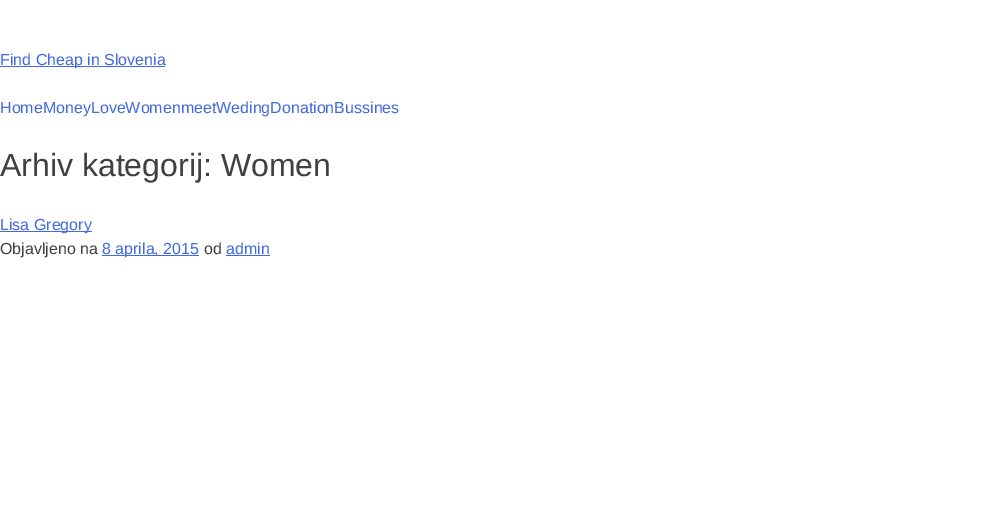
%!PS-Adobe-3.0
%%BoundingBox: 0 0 987 522
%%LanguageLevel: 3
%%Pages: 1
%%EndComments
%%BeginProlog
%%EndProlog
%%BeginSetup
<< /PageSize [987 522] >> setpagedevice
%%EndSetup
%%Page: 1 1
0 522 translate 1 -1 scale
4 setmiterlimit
1 setgray
0 0 987 522 rectfill
0.255 0.412 0.882 setrgbcolor
0 66 165 1 rectfill
0 231 92 1 rectfill
102 255 97 1 rectfill
226 255 44 1 rectfill
/LiberationSans-Regular [16 0 0 -16 0 0] selectfont
0 65 moveto (Find Cheap in Slovenia) show
0 113 moveto (HomeMoneyLoveWomenmeetWedingDonationBussines) show
/LiberationSans-Regular [32 0 0 -32 0 0] selectfont
0.251 setgray
0 176 moveto (Arhiv kategorij: Women) show
/LiberationSans-Regular [16 0 0 -16 0 0] selectfont
0.255 0.412 0.882 setrgbcolor
0 230 moveto (Lisa Gregory) show
0.251 setgray
0 254 moveto (Objavljeno na) show
0.255 0.412 0.882 setrgbcolor
102 254 moveto (8 aprila, 2015) show
0.251 setgray
204 254 moveto (od) show
0.255 0.412 0.882 setrgbcolor
226 254 moveto (admin) show
showpage
%%EOF
